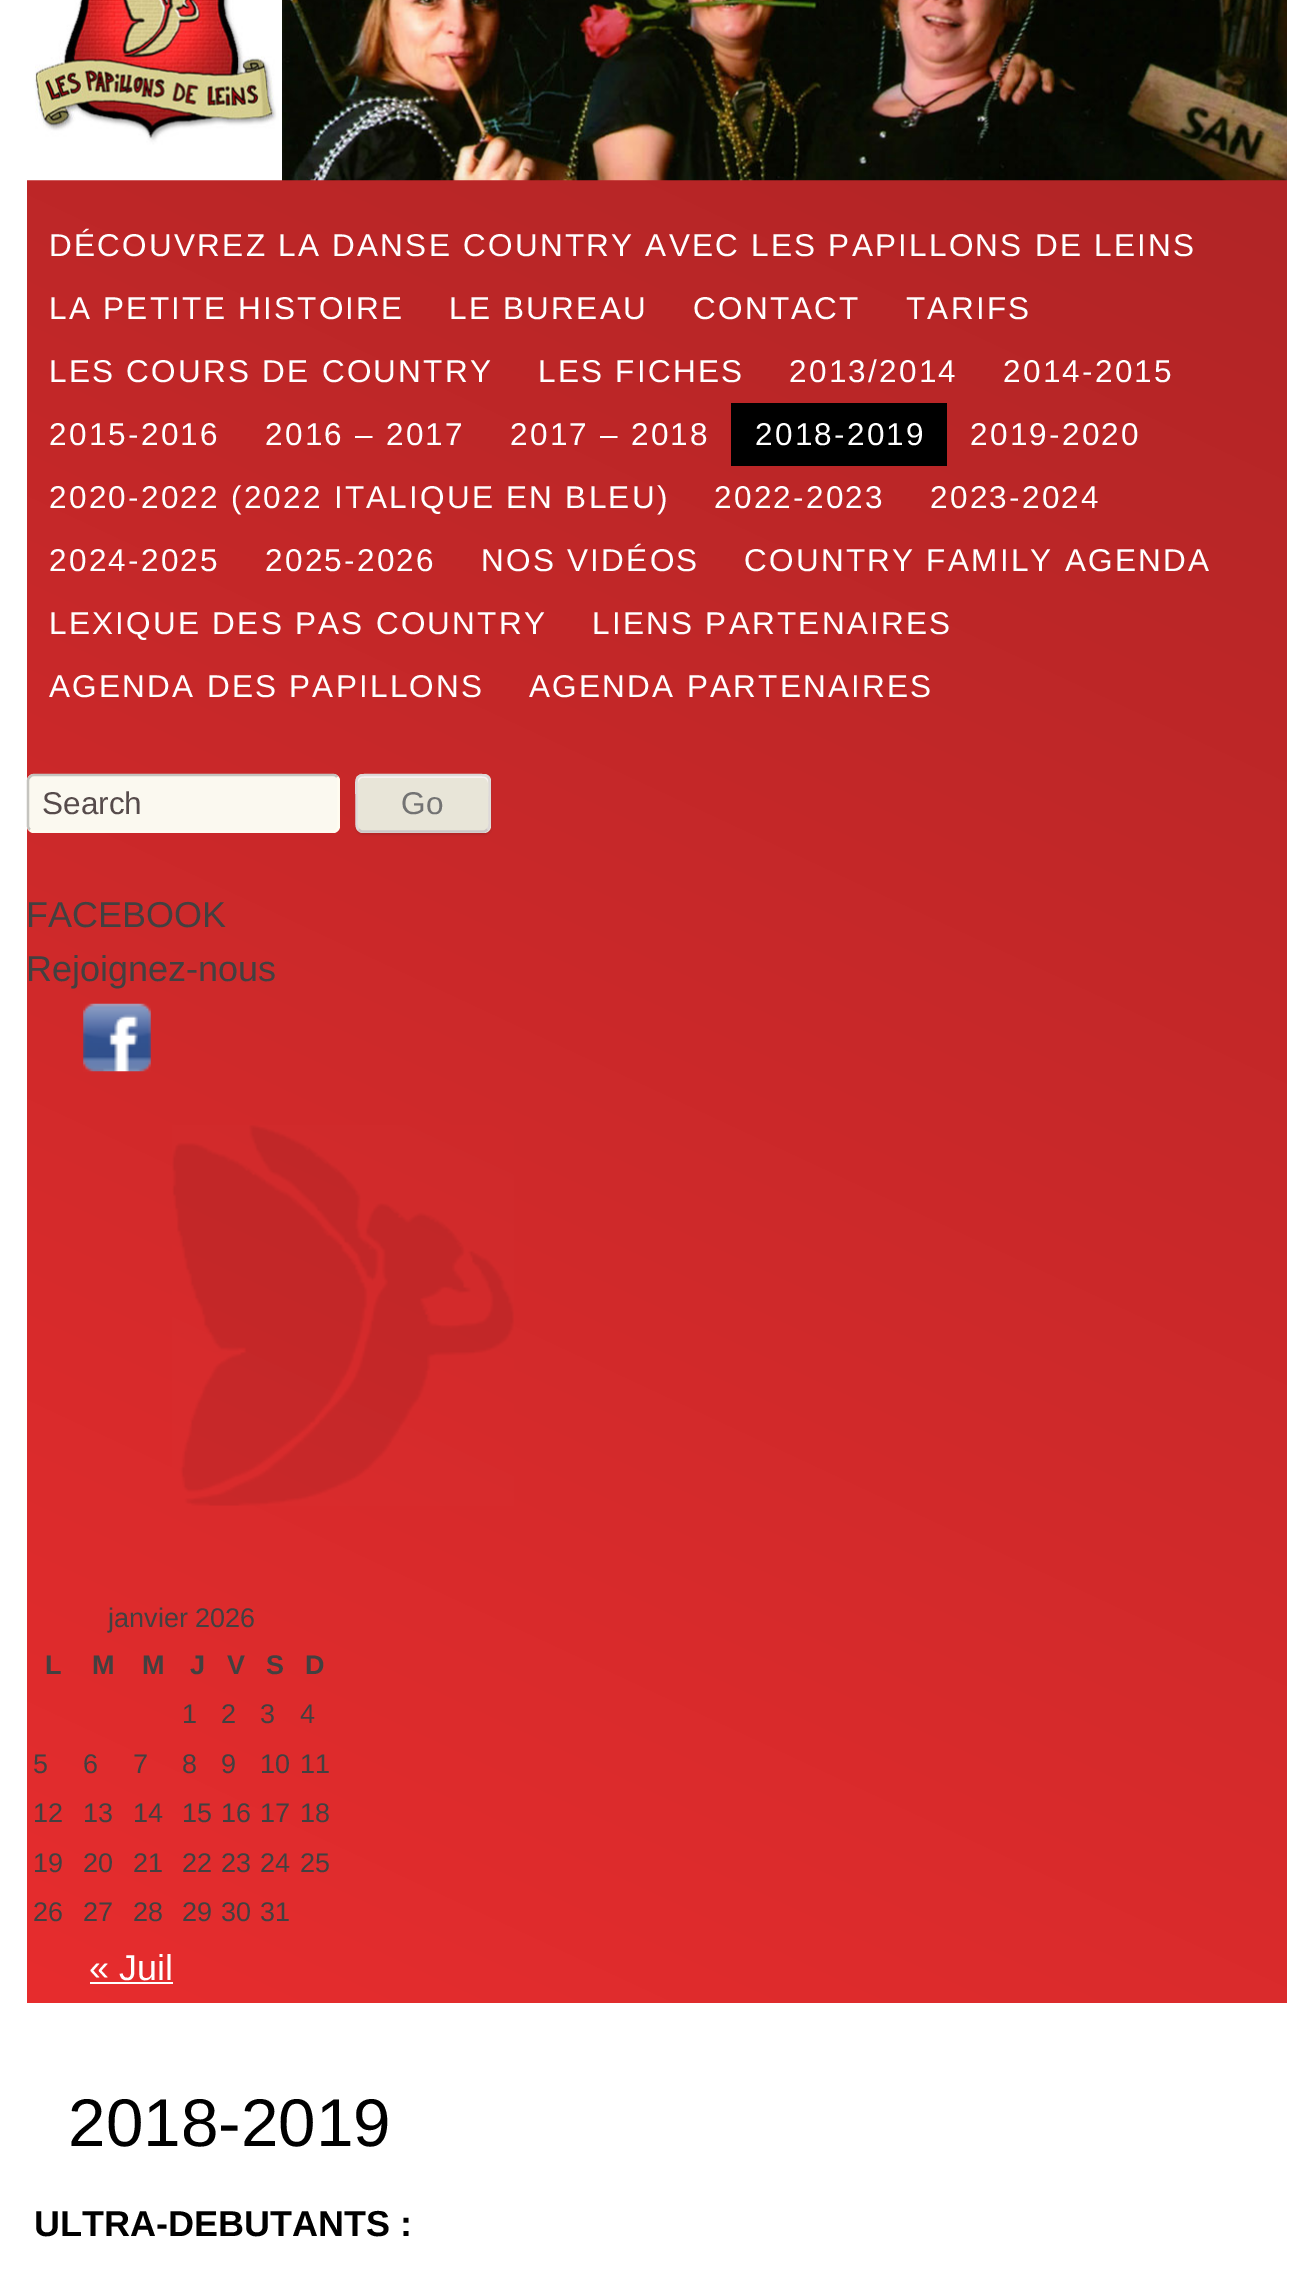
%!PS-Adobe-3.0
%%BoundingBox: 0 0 1313 2284
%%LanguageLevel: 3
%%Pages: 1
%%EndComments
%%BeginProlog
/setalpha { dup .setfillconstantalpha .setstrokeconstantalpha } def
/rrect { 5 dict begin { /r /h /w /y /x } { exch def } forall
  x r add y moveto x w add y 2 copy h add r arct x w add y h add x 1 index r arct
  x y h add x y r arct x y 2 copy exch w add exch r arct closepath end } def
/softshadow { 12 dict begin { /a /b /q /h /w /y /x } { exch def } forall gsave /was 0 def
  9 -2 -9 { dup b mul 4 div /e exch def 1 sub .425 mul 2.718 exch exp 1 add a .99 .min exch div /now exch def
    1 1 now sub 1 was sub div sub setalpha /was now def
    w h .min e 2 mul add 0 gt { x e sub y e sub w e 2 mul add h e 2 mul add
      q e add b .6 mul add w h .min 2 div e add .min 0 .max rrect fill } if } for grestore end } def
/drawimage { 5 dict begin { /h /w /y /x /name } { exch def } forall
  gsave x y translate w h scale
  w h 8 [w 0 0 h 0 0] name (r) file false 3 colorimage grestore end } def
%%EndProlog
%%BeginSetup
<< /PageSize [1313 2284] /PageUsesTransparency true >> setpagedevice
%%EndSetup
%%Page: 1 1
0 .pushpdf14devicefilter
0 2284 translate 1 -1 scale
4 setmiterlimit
1 setgray
0 0 1313 2284 rectfill
gsave newpath 27 180 moveto 1287 180 lineto 1287 2003 lineto 27 2003 lineto closepath clip newpath
<< /ShadingType 2 /ColorSpace /DeviceRGB /Coords [195 2081 1119 101] /Extend [true true] /Function << /FunctionType 2 /Domain [0 1] /C0 [0.906 0.176 0.18] /C1 [0.694 0.145 0.149] /N 1 >> >> shfill grestore
(images/1.raw) 27 0 1260 181 drawimage
0 setgray
731 403 216 63 rectfill
0.984 0.976 0.941 setrgbcolor
27 774 313 59 7 rrect fill
1 0.988 0.941 setrgbcolor
2.2 setlinewidth
newpath 337 777 moveto 338 778 338.5 779.5 338.5 781 curveto 338.5 826 lineto 338.5 827 338 828.5 337 829.5 curveto 336 831 334.5 831.5 333 831.5 curveto 34 831.5 lineto 32.5 831.5 31 831 30 829.5 curveto stroke
0.773 0.769 0.749 setrgbcolor
newpath 30 829.5 moveto 28.5 828.5 28 827 28 826 curveto 28 781 lineto 28 779.5 28.5 778 30 777 curveto 31 775.5 32.5 775 34 775 curveto 333 775 lineto 334.5 775 336 775.5 337 777 curveto stroke
0 setgray
356 776 135 59 7 1 0.1 softshadow
0.91 0.898 0.847 setrgbcolor
356 774 135 59 7 rrect fill
0.973 0.949 0.949 setrgbcolor
newpath 362 778 moveto 484 778 lineto 486 778 488 781 488 783 curveto 488 781 lineto 488 778 486 776 483 776 curveto 363 776 lineto 360 776 358 778 358 781 curveto 358 783 lineto 358 781 360 778 362 778 curveto closepath fill
0.796 0.773 0.773 setrgbcolor
newpath 487.5 829.5 moveto 484.5 831.5 lineto 361.5 831.5 lineto 358.5 829.5 lineto stroke
0.867 0.851 0.851 setrgbcolor
newpath 358.5 829.5 moveto 355.5 827 356.5 821.5 356.5 818 curveto 356.5 803 lineto 356.5 771.5 351 775 382.5 775 curveto 463.5 775 lineto 495 775 489.5 771.5 489.5 803 curveto 489.5 818 lineto 489.5 821.5 490.5 827 487.5 829.5 curveto stroke
(images/2.raw) 83 1003 68 69 drawimage
(images/3.raw) 172 1125 342 381 drawimage
1 setgray
90 1982 83 2 rectfill
/LiberationSans-Regular [31.5 0 0 -31.5 0 0] selectfont
49 256 moveto 2.25 0 (DÉCOUVREZ LA DANSE COUNTRY AVEC LES PAPILLONS DE LEINS) ashow
49 319 moveto 2.25 0 (LA PETITE HISTOIRE) ashow
449 319 moveto 2.25 0 (LE BUREAU) ashow
693 319 moveto 2.25 0 (CONTACT) ashow
906 319 moveto 2.25 0 (TARIFS) ashow
49 382 moveto 2.25 0 (LES COURS DE COUNTRY) ashow
538 382 moveto 2.25 0 (LES FICHES) ashow
789 382 moveto 2.25 0 (2013/2014) ashow
1003 382 moveto 2.25 0 (2014-2015) ashow
49 445 moveto 2.25 0 (2015-2016) ashow
265 445 moveto 2.25 0 (2016 – 2017) ashow
510 445 moveto 2.25 0 (2017 – 2018) ashow
755 445 moveto 2.25 0 (2018-2019) ashow
970 445 moveto 2.25 0 (2019-2020) ashow
49 508 moveto 2.25 0 (2020-2022 \(2022 ITALIQUE EN BLEU\)) ashow
714 508 moveto 2.25 0 (2022-2023) ashow
930 508 moveto 2.25 0 (2023-2024) ashow
49 571 moveto 2.25 0 (2024-2025) ashow
265 571 moveto 2.25 0 (2025-2026) ashow
481 571 moveto 2.25 0 (NOS VIDÉOS) ashow
744 571 moveto 2.25 0 (COUNTRY FAMILY AGENDA) ashow
49 634 moveto 2.25 0 (LEXIQUE DES PAS COUNTRY) ashow
592 634 moveto 2.25 0 (LIENS PARTENAIRES) ashow
49 697 moveto 2.25 0 (AGENDA DES PAPILLONS) ashow
529 697 moveto 2.25 0 (AGENDA PARTENAIRES) ashow
0.337 0.294 0.294 setrgbcolor
42 814 moveto (Search) show
0.451 setgray
401 814 moveto (Go) show
/LiberationSans-Regular [36 0 0 -36 0 0] selectfont
0.263 0.251 0.251 setrgbcolor
26 927 moveto (FACEBOOK) show
26 981 moveto (Rejoignez-nous) show
/LiberationSans-Regular [27 0 0 -27 0 0] selectfont
108 1627 moveto (janvier 2026) show
/LiberationSans-Bold [27 0 0 -27 0 0] selectfont
45 1674 moveto (L) show
92 1674 moveto (M) show
142 1674 moveto (M) show
190 1674 moveto (J) show
227 1674 moveto (V) show
266 1674 moveto (S) show
305 1674 moveto (D) show
/LiberationSans-Regular [27 0 0 -27 0 0] selectfont
182 1723 moveto (1) show
221 1723 moveto (2) show
260 1723 moveto (3) show
300 1723 moveto (4) show
33 1773 moveto (5) show
83 1773 moveto (6) show
133 1773 moveto (7) show
182 1773 moveto (8) show
221 1773 moveto (9) show
260 1773 moveto (10) show
300 1773 moveto (11) show
33 1822 moveto (12) show
83 1822 moveto (13) show
133 1822 moveto (14) show
182 1822 moveto (15) show
221 1822 moveto (16) show
260 1822 moveto (17) show
300 1822 moveto (18) show
33 1872 moveto (19) show
83 1872 moveto (20) show
133 1872 moveto (21) show
182 1872 moveto (22) show
221 1872 moveto (23) show
260 1872 moveto (24) show
300 1872 moveto (25) show
33 1921 moveto (26) show
83 1921 moveto (27) show
133 1921 moveto (28) show
182 1921 moveto (29) show
221 1921 moveto (30) show
260 1921 moveto (31) show
/LiberationSans-Regular [36 0 0 -36 0 0] selectfont
1 setgray
89 1980 moveto (« Juil) show
/LiberationSans-Regular [67.5 0 0 -67.5 0 0] selectfont
0 setgray
68 2146 moveto (2018-2019) show
/LiberationSans-Bold [36 0 0 -36 0 0] selectfont
34 2236 moveto (ULTRA-DEBUTANTS :) show
.poppdf14devicefilter showpage
%%EOF
